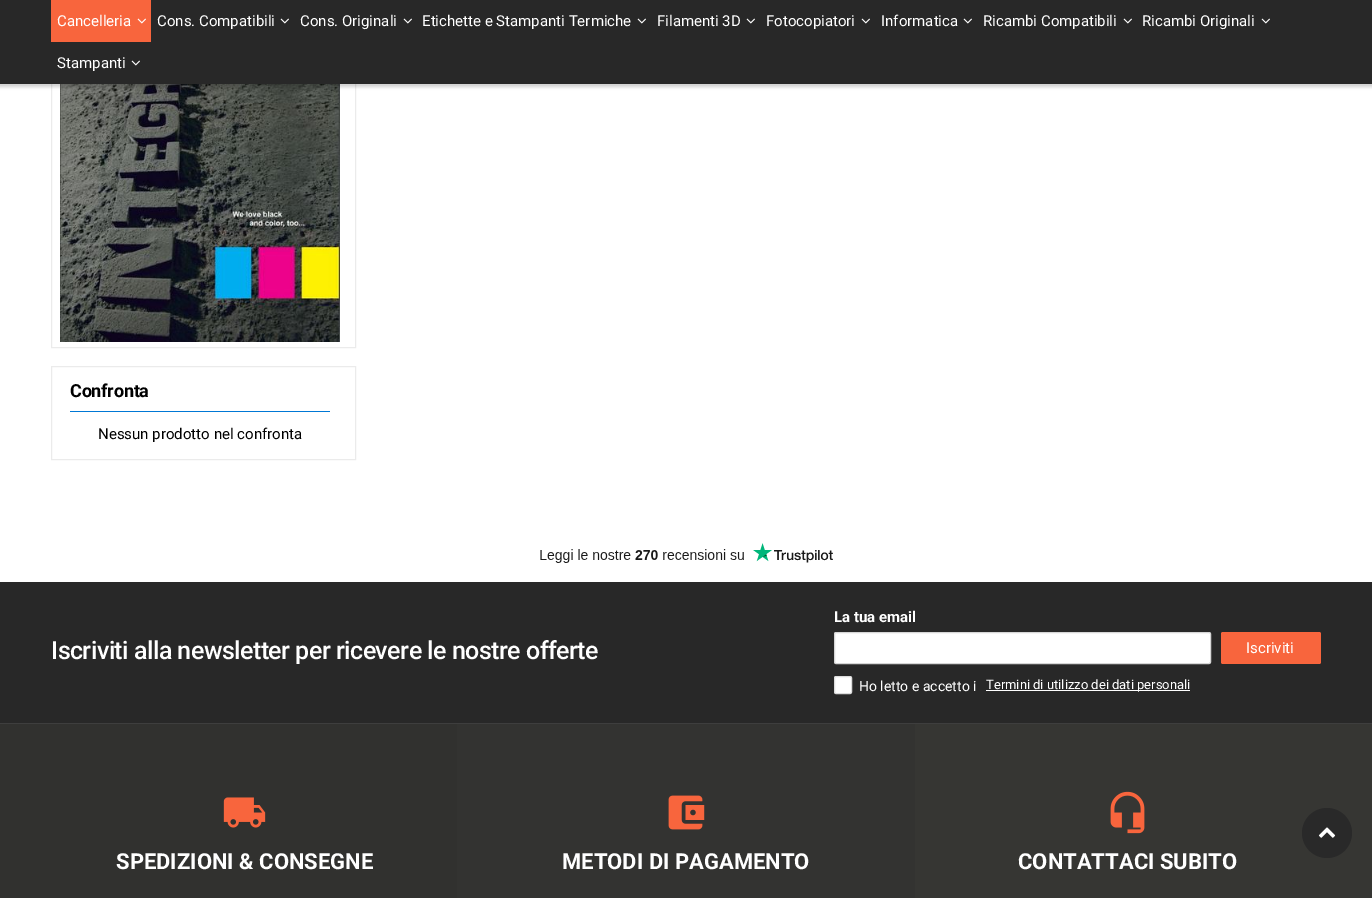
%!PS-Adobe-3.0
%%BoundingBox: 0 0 1372 898
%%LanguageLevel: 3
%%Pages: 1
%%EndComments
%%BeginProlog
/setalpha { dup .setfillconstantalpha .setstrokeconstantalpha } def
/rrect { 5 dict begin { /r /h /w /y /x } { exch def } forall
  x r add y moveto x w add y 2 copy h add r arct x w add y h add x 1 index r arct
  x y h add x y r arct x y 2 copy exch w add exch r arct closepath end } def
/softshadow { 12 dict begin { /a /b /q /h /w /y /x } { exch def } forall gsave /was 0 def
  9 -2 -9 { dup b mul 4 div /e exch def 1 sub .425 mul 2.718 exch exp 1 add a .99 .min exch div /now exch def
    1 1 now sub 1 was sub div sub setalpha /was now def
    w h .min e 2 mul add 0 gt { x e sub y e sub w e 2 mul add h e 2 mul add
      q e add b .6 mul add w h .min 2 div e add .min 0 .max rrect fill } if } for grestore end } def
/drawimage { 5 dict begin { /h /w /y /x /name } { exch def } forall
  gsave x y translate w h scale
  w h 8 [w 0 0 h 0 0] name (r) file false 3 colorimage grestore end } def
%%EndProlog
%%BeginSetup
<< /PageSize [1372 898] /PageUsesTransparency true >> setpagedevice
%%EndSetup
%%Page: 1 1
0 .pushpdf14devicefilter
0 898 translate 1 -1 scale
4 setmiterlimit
1 setgray
0 0 1372 898 rectfill
0.922 setgray
51.5 33.5 304 314 rectstroke
(images/3.raw) 60 84 280 258 drawimage
0 setgray
-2 -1 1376 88 0 1.5 0.18 softshadow
0.157 setgray
0 0 1372 84 rectfill
0.973 0.396 0.239 setrgbcolor
51 0 100 42 rectfill
(images/1.raw) 137 18 9 6 drawimage
(images/2.raw) 280 18 9 6 drawimage
(images/2.raw) 403 18 9 6 drawimage
(images/2.raw) 637 18 9 6 drawimage
(images/2.raw) 746 18 9 6 drawimage
(images/2.raw) 861 18 9 6 drawimage
(images/2.raw) 963 18 9 6 drawimage
(images/2.raw) 1123 18 9 6 drawimage
(images/2.raw) 1261 18 9 6 drawimage
(images/2.raw) 131 60 9 6 drawimage
0.922 setgray
51.5 366.5 304 93 rectstroke
0 0.471 0.835 setrgbcolor
70 411 260 1 rectfill
(images/4.raw) 540 543 293 20 drawimage
0.157 setgray
0 582 1372 141 rectfill
0.243 setgray
0 723 1372 1 rectfill
1 setgray
834.5 632.5 376 31 1.5 rrect gsave fill grestore
0.839 setgray
stroke
0.973 0.396 0.239 setrgbcolor
1221 632 100 32 2 rrect fill
1 setgray
834.5 676.5 17 17 1.5 rrect gsave fill grestore
0.863 setgray
stroke
1 setgray
986 690 204 1 rectfill
0.212 0.212 0.2 setrgbcolor
915 724 457 174 rectfill
0.161 setgray
newpath 1327 833 25 0 360 arc closepath fill
(images/5.raw) 1318 827 18 11 drawimage
0.192 0.192 0.184 setrgbcolor
0 724 457 174 rectfill
(images/6.raw) 223 797 43 31 drawimage
0.2 0.2 0.192 setrgbcolor
457 724 458 174 rectfill
(images/7.raw) 668 795 37 35 drawimage
(images/8.raw) 1110 791 35 43 drawimage
/Roboto-Regular [15 0 0 -15 0 0] selectfont
1 setgray
57 26 moveto (Cancelleria) show
157 26 moveto (Cons. Compatibili) show
300 26 moveto (Cons. Originali) show
422 26 moveto (Etichette e Stampanti Termiche) show
657 26 moveto (Filamenti 3D) show
766 26 moveto (Fotocopiatori) show
881 26 moveto (Informatica) show
983 26 moveto (Ricambi Compatibili) show
1142 26 moveto (Ricambi Originali) show
57 68 moveto (Stampanti) show
/Roboto-Bold [18 0 0 -18 0 0] selectfont
0 setgray
70 397 moveto -0.25 0 (Confronta) ashow
/Roboto-Regular [15 0 0 -15 0 0] selectfont
98 439 moveto (Nessun prodotto nel confronta) show
/Roboto-Medium [25 0 0 -25 0 0] selectfont
1 setgray
51 659 moveto -0.5 0 (Iscriviti alla newsletter per ricevere le nostre offerte) ashow
/Roboto-Bold [15 0 0 -15 0 0] selectfont
834 622 moveto (La tua email) show
/Roboto-Regular [15 0 0 -15 0 0] selectfont
1246 653 moveto (Iscriviti) show
/Roboto-Regular [14 0 0 -14 0 0] selectfont
859 691 moveto (Ho letto e accetto i) show
/Roboto-Regular [13 0 0 -13 0 0] selectfont
986 689 moveto (Termini di utilizzo dei dati personali) show
/Roboto-Bold [22 0 0 -22 0 0] selectfont
116 869 moveto (SPEDIZIONI & CONSEGNE) show
562 869 moveto (METODI DI PAGAMENTO) show
1018 869 moveto (CONTATTACI SUBITO) show
.poppdf14devicefilter showpage
%%EOF
